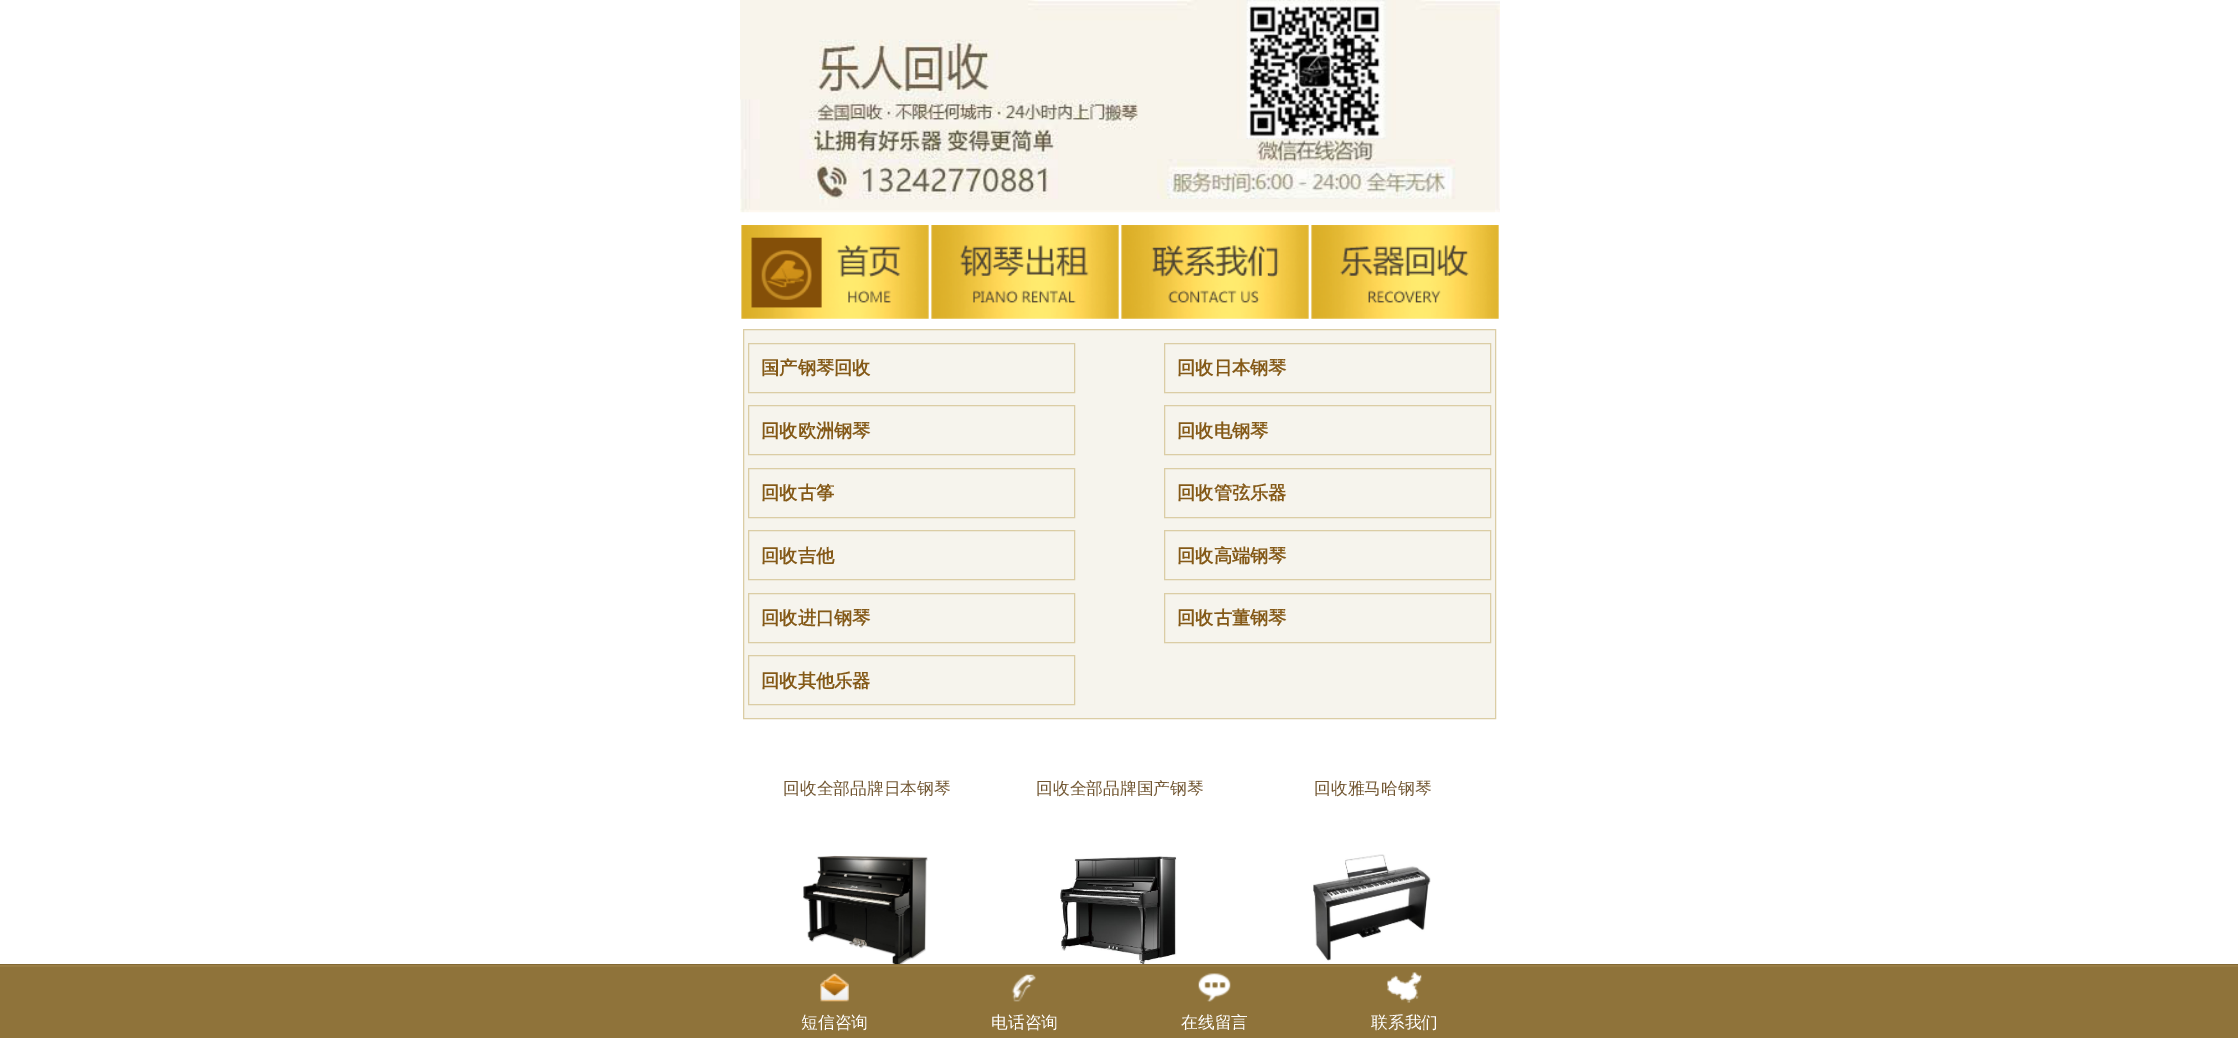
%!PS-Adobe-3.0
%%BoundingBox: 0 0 2238 1038
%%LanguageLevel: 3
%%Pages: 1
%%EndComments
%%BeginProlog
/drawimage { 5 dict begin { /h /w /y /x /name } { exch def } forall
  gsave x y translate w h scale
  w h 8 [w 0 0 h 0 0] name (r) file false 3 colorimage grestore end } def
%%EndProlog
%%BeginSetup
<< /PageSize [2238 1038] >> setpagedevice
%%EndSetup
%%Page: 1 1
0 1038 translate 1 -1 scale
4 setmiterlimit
1 setgray
0 0 2238 1038 rectfill
(images/1.raw) 740 0 760 213 drawimage
(images/2.raw) 741 225 188 94 drawimage
(images/3.raw) 931 225 188 94 drawimage
(images/4.raw) 1121 225 188 94 drawimage
(images/5.raw) 1311 225 188 94 drawimage
0.965 0.957 0.929 setrgbcolor
newpath 743.5 329.5 moveto 1495.5 329.5 lineto 1495.5 718.5 lineto 743.5 718.5 lineto closepath gsave fill grestore
0.859 0.804 0.647 setrgbcolor
stroke
748.5 343.5 326 49 rectstroke
1164.5 343.5 326 49 rectstroke
748.5 405.5 326 49 rectstroke
1164.5 405.5 326 49 rectstroke
748.5 468.5 326 49 rectstroke
1164.5 468.5 326 49 rectstroke
748.5 530.5 326 49 rectstroke
1164.5 530.5 326 49 rectstroke
748.5 593.5 326 49 rectstroke
1164.5 593.5 326 49 rectstroke
748.5 655.5 326 49 rectstroke
(images/6.raw) 803 855 125 109 drawimage
(images/7.raw) 1060 856 117 108 drawimage
(images/8.raw) 1313 854 118 107 drawimage
(images/9.raw) 0 964 2238 74 drawimage
(images/10.raw) 820 973 29 29 drawimage
(images/11.raw) 1011 974 25 28 drawimage
(images/12.raw) 1198 973 33 29 drawimage
(images/13.raw) 1387 972 35 31 drawimage
/WenQuanYiZenHei-Bold [18.25 0 0 -18.25 0 0] selectfont
0.518 0.349 0.09 setrgbcolor
761 374 moveto (国产钢琴回收) show
1177 374 moveto (回收日本钢琴) show
761 437 moveto (回收欧洲钢琴) show
1177 437 moveto (回收电钢琴) show
761 499 moveto (回收古筝) show
1177 499 moveto (回收管弦乐器) show
761 562 moveto (回收吉他) show
1177 562 moveto (回收高端钢琴) show
761 624 moveto (回收进口钢琴) show
1177 624 moveto (回收古董钢琴) show
761 687 moveto (回收其他乐器) show
/WenQuanYiZenHei-Medium [16.75 0 0 -16.75 0 0] selectfont
0.447 0.341 0.2 setrgbcolor
783 794 moveto (回收全部品牌日本钢琴) show
1036 794 moveto (回收全部品牌国产钢琴) show
1314 794 moveto (回收雅马哈钢琴) show
1 setgray
801 1028 moveto (短信咨询) show
991 1028 moveto (电话咨询) show
1181 1028 moveto (在线留言) show
1371 1028 moveto (联系我们) show
showpage
%%EOF
